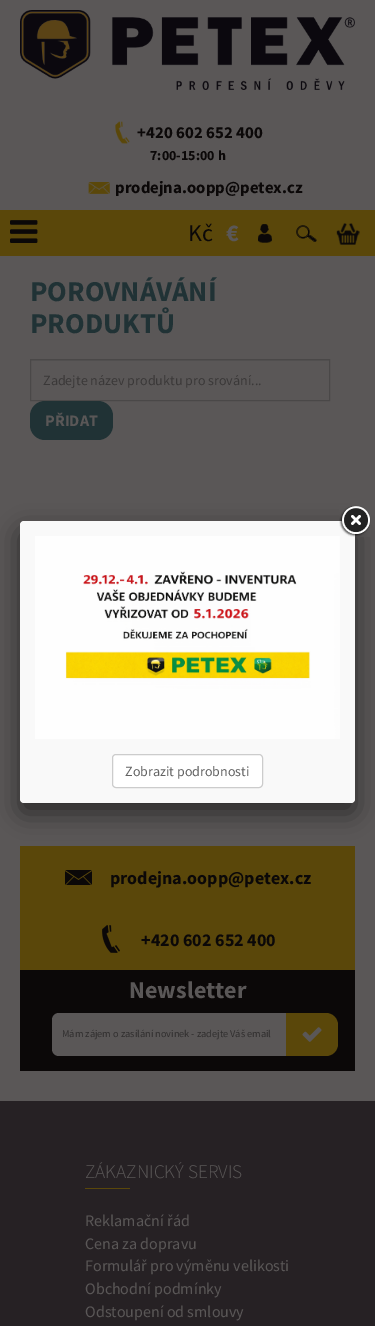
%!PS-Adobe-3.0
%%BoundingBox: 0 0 375 1326
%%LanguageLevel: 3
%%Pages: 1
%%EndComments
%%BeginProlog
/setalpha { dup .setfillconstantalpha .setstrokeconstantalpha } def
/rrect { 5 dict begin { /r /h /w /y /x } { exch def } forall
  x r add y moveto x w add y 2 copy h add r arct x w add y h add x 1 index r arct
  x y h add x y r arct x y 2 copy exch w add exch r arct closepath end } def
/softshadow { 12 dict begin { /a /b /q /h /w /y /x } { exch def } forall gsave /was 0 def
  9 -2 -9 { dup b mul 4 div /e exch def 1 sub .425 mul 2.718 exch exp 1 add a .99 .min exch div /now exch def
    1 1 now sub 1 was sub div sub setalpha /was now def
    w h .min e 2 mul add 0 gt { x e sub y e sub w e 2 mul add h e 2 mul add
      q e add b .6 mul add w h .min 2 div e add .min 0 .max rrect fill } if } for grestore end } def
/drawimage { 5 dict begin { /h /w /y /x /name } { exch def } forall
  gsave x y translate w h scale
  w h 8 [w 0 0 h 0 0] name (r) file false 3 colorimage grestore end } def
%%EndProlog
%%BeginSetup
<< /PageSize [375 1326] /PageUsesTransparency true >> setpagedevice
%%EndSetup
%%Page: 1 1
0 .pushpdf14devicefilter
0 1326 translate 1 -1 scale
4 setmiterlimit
0.353 0.341 0.341 setrgbcolor
0 0 375 1326 rectfill
(images/1.raw) 20 10 335 80 drawimage
(images/2.raw) 115 121 15 23 drawimage
(images/3.raw) 88 182 22 12 drawimage
0.353 0.278 0.039 setrgbcolor
0 210 375 46 rectfill
(images/4.raw) 10 220 28 23 drawimage
(images/5.raw) 258 224 14 19 drawimage
(images/6.raw) 296 225 21 17 drawimage
(images/7.raw) 336 223 24 22 drawimage
0.329 0.318 0.318 setrgbcolor
31 360 298 1 rectfill
0.29 0.282 0.282 setrgbcolor
30.5 359.5 299 41 rectstroke
0.125 0.196 0.208 setrgbcolor
30 401 83 39 15 rrect fill
0.353 0.278 0.039 setrgbcolor
20 846 335 124 rectfill
(images/8.raw) 65 870 27 15 drawimage
(images/9.raw) 102 925 18 28 drawimage
0.043 0.031 0.031 setrgbcolor
20 970 335 101 rectfill
0.353 0.341 0.341 setrgbcolor
newpath 59 1013 moveto 286 1013 lineto 286 1056 lineto 59 1056 lineto 55 1056 52 1053 52 1049 curveto 52 1020 lineto 52 1016 55 1013 59 1013 curveto closepath fill
0.353 0.278 0.039 setrgbcolor
newpath 286 1013 moveto 326 1013 lineto 332.5 1013 338 1018.5 338 1025 curveto 338 1044 lineto 338 1050.5 332.5 1056 326 1056 curveto 286 1056 lineto closepath fill
(images/10.raw) 302 1027 20 15 drawimage
0 setgray
20 531 335 282 4 12.5 0.5 softshadow
0.976 setgray
20 521 335 282 4 rrect fill
(images/12.raw) 35 536 305 203 drawimage
(images/11.raw) 339 505 32 32 drawimage
1 setgray
112.5 754.5 150 33 3.5 rrect gsave fill grestore
0.8 setgray
stroke
0.149 0.129 0.141 setrgbcolor
0 1101 375 225 rectfill
0.353 0.278 0.039 setrgbcolor
85 1188 45 1 rectfill
/SourceSansPro-Bold [16.75 0 0 -16.75 0 0] selectfont
0.043 0.031 0.031 setrgbcolor
137 138 moveto (+420 602 652 400) show
/SourceSansPro-Bold [14 0 0 -14 0 0] selectfont
150 160 moveto (7:00-15:00 h) show
/SourceSansPro-Bold [16.75 0 0 -16.75 0 0] selectfont
115 193 moveto (prodejna.oopp@petex.cz) show
/SourceSansPro-Regular [24 0 0 -24 0 0] selectfont
188 241 moveto (Kč) show
/SourceSansPro-Bold [24 0 0 -24 0 0] selectfont
0.353 0.341 0.341 setrgbcolor
226 241 moveto (€) show
/SourceSansPro-Bold [28.75 0 0 -28.75 0 0] selectfont
0.125 0.196 0.208 setrgbcolor
30 301 moveto (POROVNÁVÁNÍ) show
30 333 moveto (PRODUKTŮ) show
/SourceSansPro-Regular [14 0 0 -14 0 0] selectfont
0.227 0.22 0.22 setrgbcolor
43 385 moveto (Zadejte název produktu pro srování...) show
/SourceSansPro-Bold [16 0 0 -16 0 0] selectfont
0.353 0.341 0.341 setrgbcolor
45 426 moveto (PŘIDAT) show
/SourceSansPro-Bold [18 0 0 -18 0 0] selectfont
0.043 0.031 0.031 setrgbcolor
110 884 moveto (prodejna.oopp@petex.cz) show
141 946 moveto (+420 602 652 400) show
/SourceSansPro-Bold [24 0 0 -24 0 0] selectfont
0.353 0.341 0.341 setrgbcolor
129 998 moveto (Newsletter) show
/SourceSansPro-Regular [10.25 0 0 -10.25 0 0] selectfont
0.184 0.176 0.176 setrgbcolor
62 1037 moveto (Mám zájem o zasílání novinek - zadejte Váš email) show
/SourceSansPro-Regular [14 0 0 -14 0 0] selectfont
0.384 setgray
125 776 moveto (Zobrazit podrobnosti) show
/SourceSansPro-Light [19.25 0 0 -19.25 0 0] selectfont
0.353 0.341 0.341 setrgbcolor
85 1178 moveto (ZÁKAZNICKÝ SERVIS) show
/SourceSansPro-Regular [16 0 0 -16 0 0] selectfont
85 1226 moveto (Reklamační řád) show
85 1249 moveto (Cena za dopravu) show
85 1271 moveto (Formulář pro výměnu velikosti) show
85 1294 moveto (Obchodní podmínky) show
85 1317 moveto (Odstoupení od smlouvy) show
.poppdf14devicefilter showpage
%%EOF
